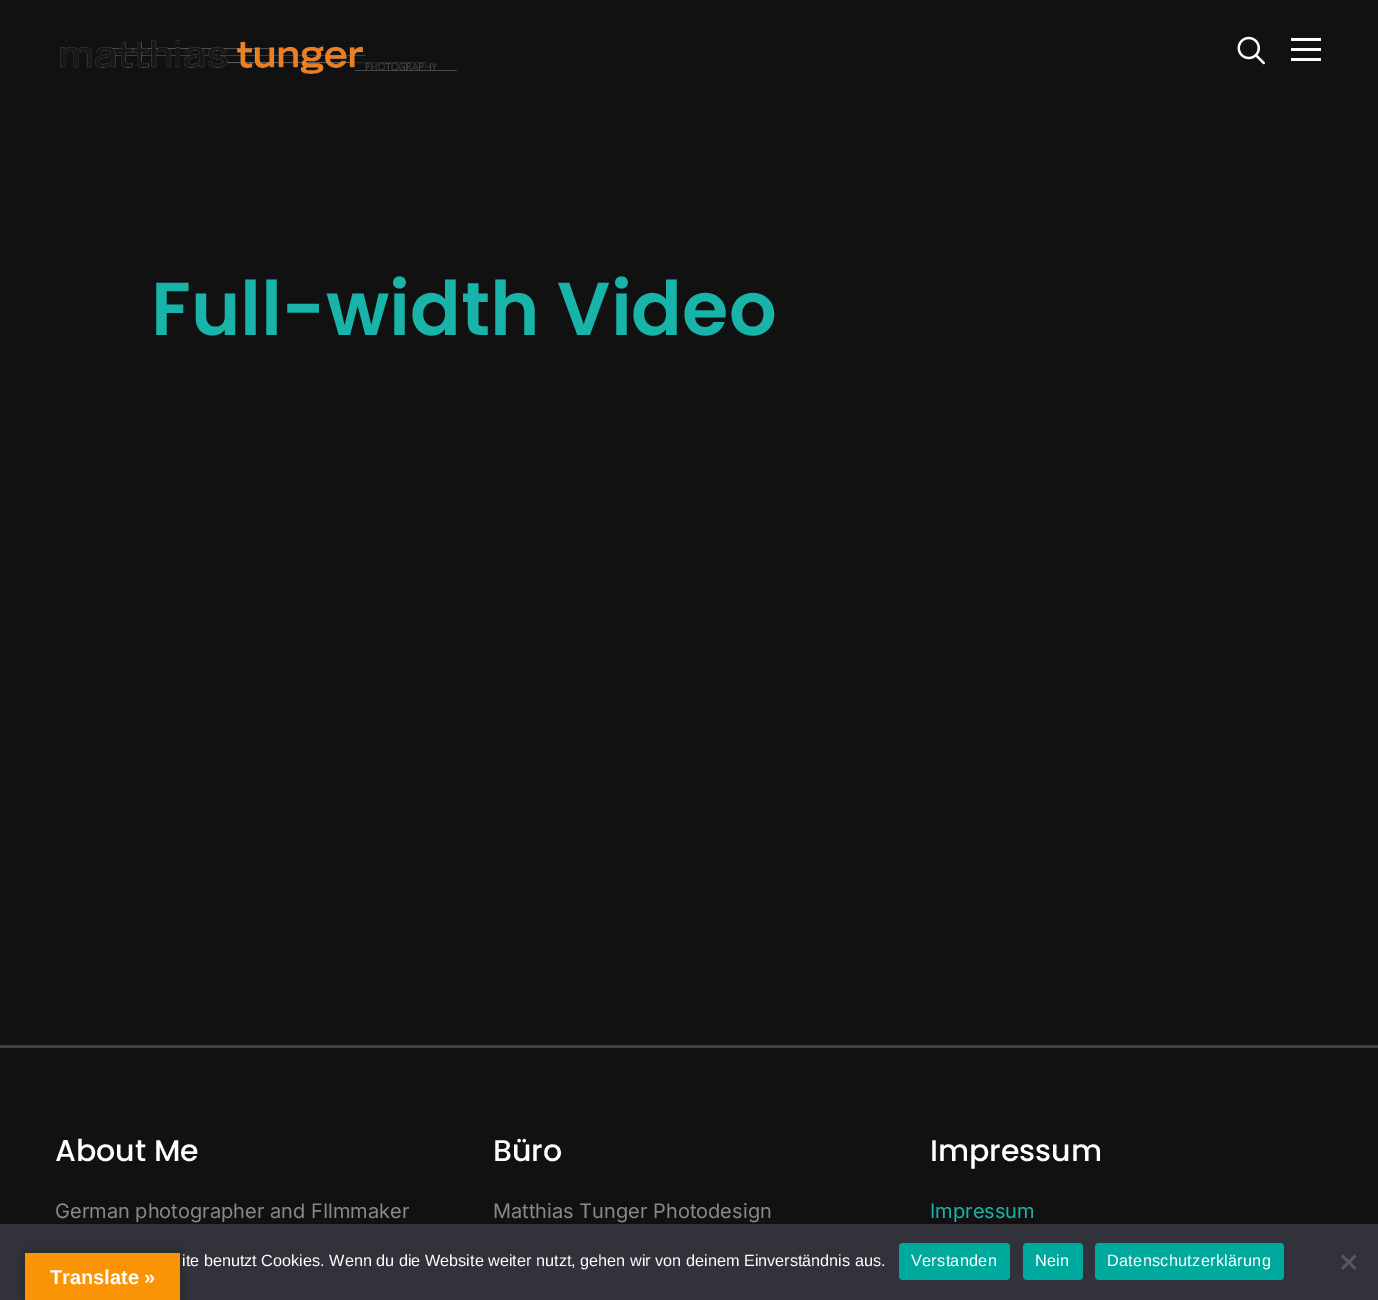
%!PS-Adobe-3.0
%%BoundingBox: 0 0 1378 1300
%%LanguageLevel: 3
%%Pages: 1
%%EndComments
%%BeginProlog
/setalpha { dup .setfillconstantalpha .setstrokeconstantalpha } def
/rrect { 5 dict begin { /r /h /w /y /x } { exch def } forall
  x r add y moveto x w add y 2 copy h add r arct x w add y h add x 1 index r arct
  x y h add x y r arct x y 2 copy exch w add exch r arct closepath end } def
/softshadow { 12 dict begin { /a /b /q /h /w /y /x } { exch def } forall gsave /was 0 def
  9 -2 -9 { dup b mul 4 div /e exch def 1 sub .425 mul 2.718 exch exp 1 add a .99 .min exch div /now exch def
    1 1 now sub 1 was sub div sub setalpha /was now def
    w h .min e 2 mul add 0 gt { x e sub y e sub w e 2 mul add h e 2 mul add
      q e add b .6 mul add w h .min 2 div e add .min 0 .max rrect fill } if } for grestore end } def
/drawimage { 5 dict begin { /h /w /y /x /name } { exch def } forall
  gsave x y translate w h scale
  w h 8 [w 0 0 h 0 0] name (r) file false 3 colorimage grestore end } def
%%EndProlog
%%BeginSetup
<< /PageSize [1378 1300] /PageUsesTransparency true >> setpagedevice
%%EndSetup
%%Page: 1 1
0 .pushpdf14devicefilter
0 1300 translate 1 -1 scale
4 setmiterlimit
0.067 setgray
0 0 1378 1300 rectfill
(images/1.raw) 60 40 397 34 drawimage
(images/2.raw) 1237 36 28 29 drawimage
1 setgray
1291 38 30 3 rectfill
1291 48 30 3 rectfill
1291 58 30 3 rectfill
0.255 setgray
0 1045 1378 3 rectfill
0.196 0.196 0.227 setrgbcolor
0 1224 1378 76 rectfill
0 0.663 0.616 setrgbcolor
899 1243 111 37 4 rrect fill
1023 1243 60 37 4 rrect fill
1095 1243 189 37 4 rrect fill
0.349 0.349 0.365 setrgbcolor
newpath 1354.5 1254.5 moveto 1356.5 1256.5 lineto 1343 1269.5 lineto 1341 1268 lineto closepath fill
newpath 1341 1256.5 moveto 1343 1254.5 lineto 1356.5 1268 lineto 1354.5 1269.5 lineto closepath fill
0 setgray
25 1253 155 47 0 5.5 0.3 softshadow
0.973 0.58 0.024 setrgbcolor
25 1253 155 47 rectfill
/Poppins-SemiBold [75 0 0 -75 0 0] selectfont
0.094 0.706 0.667 setrgbcolor
151 335 moveto (Full-width Video) show
/Poppins-Medium [30 0 0 -30 0 0] selectfont
1 setgray
55 1161 moveto (About Me) show
/Inter-Regular [20 0 0 -20 0 0] selectfont
0.533 setgray
55 1218 moveto (German photographer and FIlmmaker) show
/Poppins-Medium [30 0 0 -30 0 0] selectfont
1 setgray
493 1161 moveto (Büro) show
/Inter-Regular [20 0 0 -20 0 0] selectfont
0.533 setgray
493 1218 moveto (Matthias Tunger Photodesign) show
/Poppins-Medium [30 0 0 -30 0 0] selectfont
1 setgray
930 1161 moveto (Impressum) show
/Inter-Regular [20 0 0 -20 0 0] selectfont
0.094 0.706 0.667 setrgbcolor
930 1218 moveto (Impressum) show
/LiberationSans-Regular [16.25 0 0 -16.25 0 0] selectfont
1 setgray
182 1266 moveto (ite benutzt Cookies. Wenn du die Website weiter nutzt, gehen wir von deinem Einverständnis aus.) show
911 1266 moveto 0.3 0 (Verstanden) ashow
1035 1266 moveto 0.3 0 (Nein) ashow
1107 1266 moveto 0.3 0 (Datenschutzerklärung) ashow
/LiberationSans-Bold [20 0 0 -20 0 0] selectfont
50 1284 moveto (Translate ») show
.poppdf14devicefilter showpage
%%EOF
